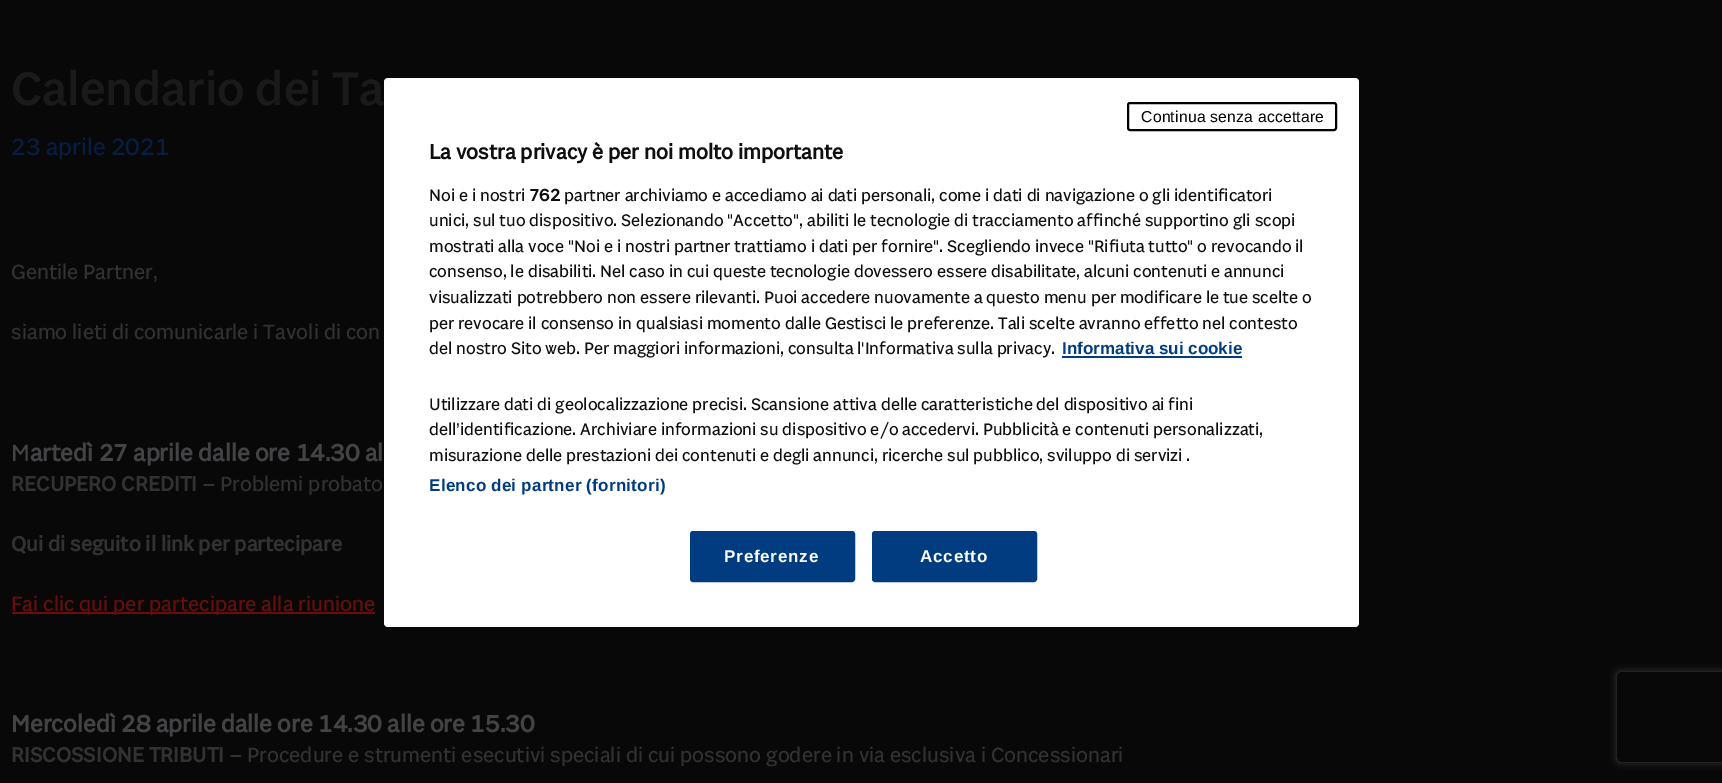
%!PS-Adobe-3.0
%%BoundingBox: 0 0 1722 783
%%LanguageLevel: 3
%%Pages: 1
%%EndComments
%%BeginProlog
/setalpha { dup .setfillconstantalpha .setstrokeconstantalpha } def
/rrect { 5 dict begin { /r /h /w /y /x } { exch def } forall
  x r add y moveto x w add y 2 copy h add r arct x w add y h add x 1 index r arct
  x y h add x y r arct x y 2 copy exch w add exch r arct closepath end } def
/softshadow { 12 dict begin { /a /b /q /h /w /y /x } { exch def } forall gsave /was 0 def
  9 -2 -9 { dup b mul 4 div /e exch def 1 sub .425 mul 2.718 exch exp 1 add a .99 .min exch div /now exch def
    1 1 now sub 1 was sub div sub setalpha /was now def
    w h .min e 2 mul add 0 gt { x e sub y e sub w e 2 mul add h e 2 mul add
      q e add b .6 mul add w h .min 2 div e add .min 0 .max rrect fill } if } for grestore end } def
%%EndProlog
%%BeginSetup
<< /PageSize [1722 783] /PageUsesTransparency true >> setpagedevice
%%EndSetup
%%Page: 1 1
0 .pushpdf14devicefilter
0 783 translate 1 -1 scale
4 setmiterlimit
0.031 setgray
0 0 1722 783 rectfill
0.416 0.055 0.043 setrgbcolor
12 612 363 2 rectfill
gsave
newpath 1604 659 moveto 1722 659 lineto 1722 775 lineto 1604 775 lineto closepath 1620 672 moveto 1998 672 lineto 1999.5 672 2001 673.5 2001 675 curveto 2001 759 lineto 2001 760.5 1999.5 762 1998 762 curveto 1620 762 lineto 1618.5 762 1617 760.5 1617 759 curveto 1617 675 lineto 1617 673.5 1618.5 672 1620 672 curveto closepath eoclip newpath
0.251 setgray
1617 672 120 90 3 4 1 softshadow
grestore
/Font-Medium [48 0 0 -48 0 0] selectfont
0.102 setgray
11 105 moveto (Calendario dei Ta) show
/Font-Regular [24 0 0 -24 0 0] selectfont
0.027 0.114 0.259 setrgbcolor
11 155 moveto (23 aprile 2021) show
/Font-Regular [21 0 0 -21 0 0] selectfont
0.196 setgray
11 279 moveto (Gentile Partner,) show
11 339 moveto (siamo lieti di comunicarle i Tavoli di con) show
/Font-Regular [24 0 0 -24 0 0] selectfont
0.263 0.263 0.275 setrgbcolor
11 461 moveto (M) show
/Font-Bold [24 0 0 -24 0 0] selectfont
30 461 moveto (artedì 27 aprile dalle ore 14.30 al) show
/Font-Bold [21 0 0 -21 0 0] selectfont
0.196 setgray
11 491 moveto (RECUPERO CREDITI –) show
/Font-Regular [21 0 0 -21 0 0] selectfont
220 491 moveto (Problemi probato) show
/Font-Bold [21 0 0 -21 0 0] selectfont
11 551 moveto (Qui di seguito il link per partecipare) show
/Font-Regular [21 0 0 -21 0 0] selectfont
0.416 0.055 0.043 setrgbcolor
11 611 moveto (Fai clic qui per partecipare alla riunione) show
/Font-Bold [24 0 0 -24 0 0] selectfont
0.263 0.263 0.275 setrgbcolor
11 732 moveto (Mercoledì 28 aprile dalle ore 14.30 alle ore 15.30) show
/Font-Bold [21 0 0 -21 0 0] selectfont
0.196 setgray
11 762 moveto (RISCOSSIONE TRIBUTI –) show
/Font-Regular [21 0 0 -21 0 0] selectfont
247 762 moveto (Procedure e strumenti esecutivi speciali di cui possono godere in via esclusiva i Concessionari) show
1 setgray
384 78 975 549 4 rrect fill
0 setgray
2 setlinewidth
1128 103 208 27 2 rrect stroke
/LiberationSans-Regular [15.75 0 0 -15.75 0 0] selectfont
1141 122 moveto 0.2 0 (Continua senza accettare) ashow
/Font-Bold [21 0 0 -21 0 0] selectfont
0.059 setgray
429 159 moveto (La vostra privacy è per noi molto importante) show
/Font-Regular [17.07 0 0 -17.07 0 0] selectfont
429 201 moveto (Noi e i nostri) show
/Font-Bold [17.07 0 0 -17.07 0 0] selectfont
529 201 moveto (762) show
/Font-Regular [17.07 0 0 -17.07 0 0] selectfont
564 201 moveto (partner archiviamo e accediamo ai dati personali, come i dati di navigazione o gli identificatori) show
429 226 moveto (unici, sul tuo dispositivo. Selezionando "Accetto", abiliti le tecnologie di tracciamento affinché supportino gli scopi) show
429 252 moveto (mostrati alla voce "Noi e i nostri partner trattiamo i dati per fornire". Scegliendo invece "Rifiuta tutto" o revocando il) show
429 277 moveto (consenso, le disabiliti. Nel caso in cui queste tecnologie dovessero essere disabilitate, alcuni contenuti e annunci) show
429 303 moveto (visualizzati potrebbero non essere rilevanti. Puoi accedere nuovamente a questo menu per modificare le tue scelte o) show
429 329 moveto (per revocare il consenso in qualsiasi momento dalle Gestisci le preferenze. Tali scelte avranno effetto nel contesto) show
429 354 moveto (del nostro Sito web. Per maggiori informazioni, consulta l'Informativa sulla privacy.) show
/LiberationSans-Bold [17.07 0 0 -17.07 0 0] selectfont
0 0.235 0.498 setrgbcolor
1062 354 moveto (Informativa sui cookie) show
1062 356 180 2 rectfill
/Font-Regular [17.07 0 0 -17.07 0 0] selectfont
0.059 setgray
429 410 moveto (Utilizzare dati di geolocalizzazione precisi. Scansione attiva delle caratteristiche del dispositivo ai fini) show
429 435 moveto (dell’identificazione. Archiviare informazioni su dispositivo e/o accedervi. Pubblicità e contenuti personalizzati,) show
429 461 moveto (misurazione delle prestazioni dei contenuti e degli annunci, ricerche sul pubblico, sviluppo di servizi .) show
/LiberationSans-Bold [17.07 0 0 -17.07 0 0] selectfont
0 0.235 0.498 setrgbcolor
429 491 moveto 0.2 0 (Elenco dei partner \(fornitori\)) ashow
691 532 163 49 2 rrect gsave fill grestore
stroke
1 setgray
724 562 moveto 0.75 0 (Preferenze) ashow
0 0.235 0.498 setrgbcolor
873 532 163 49 2 rrect gsave fill grestore
stroke
1 setgray
920 562 moveto 0.75 0 (Accetto) ashow
.poppdf14devicefilter showpage
%%EOF
